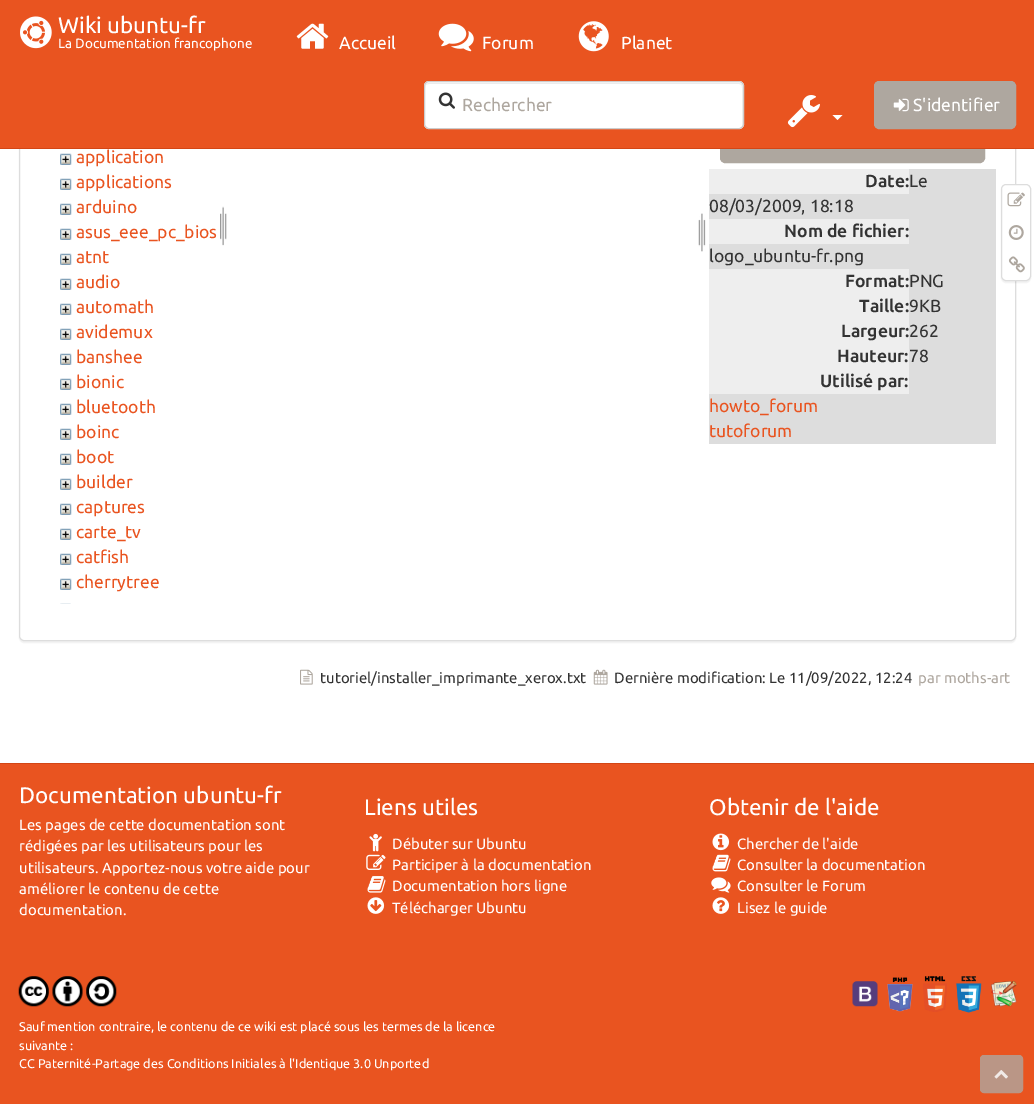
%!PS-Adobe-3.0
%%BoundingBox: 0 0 1034 1104
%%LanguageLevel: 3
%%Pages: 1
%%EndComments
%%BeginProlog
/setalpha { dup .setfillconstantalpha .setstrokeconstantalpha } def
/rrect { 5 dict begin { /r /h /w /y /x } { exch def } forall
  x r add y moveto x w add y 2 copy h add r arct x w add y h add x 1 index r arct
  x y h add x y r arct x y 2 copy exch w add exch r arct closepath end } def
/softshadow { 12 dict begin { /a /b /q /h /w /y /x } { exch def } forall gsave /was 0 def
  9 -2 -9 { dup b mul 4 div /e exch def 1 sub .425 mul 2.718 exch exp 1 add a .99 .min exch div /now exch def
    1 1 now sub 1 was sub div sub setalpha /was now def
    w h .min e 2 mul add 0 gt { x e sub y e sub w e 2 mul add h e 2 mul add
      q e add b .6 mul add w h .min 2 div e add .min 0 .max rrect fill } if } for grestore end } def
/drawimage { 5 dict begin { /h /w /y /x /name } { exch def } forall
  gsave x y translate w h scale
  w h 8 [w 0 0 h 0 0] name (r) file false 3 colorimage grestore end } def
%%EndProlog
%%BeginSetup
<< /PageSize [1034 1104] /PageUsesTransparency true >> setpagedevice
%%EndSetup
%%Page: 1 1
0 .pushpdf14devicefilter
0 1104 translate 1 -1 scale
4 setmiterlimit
1 setgray
0 0 1034 1104 rectfill
gsave
newpath 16 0 moveto 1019 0 lineto 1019 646 lineto 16 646 lineto closepath 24 -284 moveto 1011 -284 lineto 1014 -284 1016 -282 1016 -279 curveto 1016 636 lineto 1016 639 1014 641 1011 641 curveto 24 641 lineto 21 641 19 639 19 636 curveto 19 -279 lineto 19 -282 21 -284 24 -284 curveto closepath eoclip newpath
0 setgray
19 -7 997 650 5 0.5 0.05 softshadow
grestore
0.867 setgray
19.5 -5.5 996 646 4.5 rrect stroke
0.682 0.655 0.624 setrgbcolor
720.5 115.5 264 47 4.5 rrect gsave fill grestore
stroke
0.914 0.329 0.125 setrgbcolor
0 0 1034 148 rectfill
0.827 0.275 0.082 setrgbcolor
0 148 1034 1 rectfill
(images/1.raw) 20 16 32 33 drawimage
(images/2.raw) 296 23 33 26 drawimage
(images/3.raw) 438 23 36 29 drawimage
(images/4.raw) 578 21 31 31 drawimage
1 setgray
424 81 320 48 5 rrect fill
0.925 setgray
newpath 429 84 moveto 739 84 lineto 741 84 742 85 742 88 curveto 742 127 lineto 742 126 743 125 743 124 curveto 743 87 lineto 743 85 741 83 739 83 curveto 429 83 lineto 427 83 425 85 425 87 curveto 425 88 lineto 425 85 427 84 429 84 curveto closepath fill
0.8 setgray
424.5 81.5 319 47 4.5 rrect stroke
(images/5.raw) 438 92 17 17 drawimage
(images/6.raw) 787 95 33 33 drawimage
1 setgray
newpath 832.5 115 moveto 842.5 115 lineto 837.5 120 lineto closepath fill
0.682 0.655 0.624 setrgbcolor
874.5 81.5 141 47 4.5 rrect gsave fill grestore
stroke
(images/7.raw) 893 98 16 14 drawimage
(images/8.raw) 60 153 12 12 drawimage
(images/9.raw) 60 178 12 12 drawimage
(images/8.raw) 60 203 12 12 drawimage
(images/8.raw) 60 228 12 12 drawimage
(images/8.raw) 60 253 12 12 drawimage
(images/8.raw) 60 278 12 12 drawimage
(images/8.raw) 60 303 12 12 drawimage
(images/8.raw) 60 328 12 12 drawimage
(images/8.raw) 60 353 12 12 drawimage
(images/8.raw) 60 378 12 12 drawimage
(images/8.raw) 60 403 12 12 drawimage
(images/8.raw) 60 428 12 12 drawimage
(images/8.raw) 60 453 12 12 drawimage
(images/8.raw) 60 478 12 12 drawimage
(images/8.raw) 60 503 12 12 drawimage
(images/8.raw) 60 528 12 12 drawimage
(images/8.raw) 60 553 12 12 drawimage
(images/8.raw) 60 578 12 12 drawimage
(images/10.raw) 60 603 11 1 drawimage
(images/11.raw) 220 206 7 40 drawimage
(images/12.raw) 698 213 8 39 drawimage
0.867 setgray
709 169 287 100 rectfill
0.933 setgray
709 169 200 25 rectfill
709 219 200 25 rectfill
0.867 setgray
709 369 287 75 rectfill
0.933 setgray
709 269 200 125 rectfill
0.867 setgray
909 269 87 100 rectfill
0 setgray
1001 185 30 98 5 0.5 0.05 softshadow
1 setgray
1001.5 184.5 29 96 4.5 rrect gsave fill grestore
0.867 setgray
stroke
(images/13.raw) 1007 192 18 15 drawimage
(images/14.raw) 1008 225 16 15 drawimage
(images/15.raw) 1008 256 17 17 drawimage
(images/16.raw) 300 669 13 16 drawimage
(images/17.raw) 593 669 15 16 drawimage
0.914 0.329 0.125 setrgbcolor
0 764 1034 340 rectfill
0.827 0.275 0.082 setrgbcolor
0 763 1034 1 rectfill
(images/18.raw) 369 833 13 19 drawimage
(images/19.raw) 366 854 20 16 drawimage
(images/20.raw) 367 876 19 17 drawimage
(images/21.raw) 367 897 18 17 drawimage
(images/22.raw) 712 833 18 18 drawimage
(images/23.raw) 712 854 19 18 drawimage
(images/24.raw) 711 877 20 16 drawimage
(images/25.raw) 712 897 18 17 drawimage
(images/26.raw) 852 981 26 26 drawimage
(images/27.raw) 887 977 26 35 drawimage
(images/28.raw) 923 976 24 36 drawimage
(images/29.raw) 956 976 26 37 drawimage
(images/30.raw) 991 981 26 26 drawimage
(images/31.raw) 18 976 31 31 drawimage
(images/32.raw) 52 976 31 31 drawimage
(images/33.raw) 86 976 31 31 drawimage
0.729 0.588 0.525 setrgbcolor
980.5 1055.5 42 37 3.5 rrect gsave fill grestore
stroke
(images/34.raw) 994 1070 14 9 drawimage
/Ubuntu-Regular [22.5 0 0 -22.5 0 0] selectfont
1 setgray
58 33 moveto (Wiki ubuntu-fr) show
/Ubuntu-Regular [13.5 0 0 -13.5 0 0] selectfont
58 48 moveto (La Documentation francophone) show
/Ubuntu-Regular [17.5 0 0 -17.5 0 0] selectfont
339 49 moveto (Accueil) show
482 49 moveto (Forum) show
621 49 moveto (Planet) show
0.682 0.655 0.624 setrgbcolor
462 111 moveto (Rechercher) show
1 setgray
913 111 moveto (S'identifier) show
0.914 0.329 0.125 setrgbcolor
76 163 moveto (application) show
76 188 moveto (applications) show
76 213 moveto (arduino) show
76 238 moveto (asus_eee_pc_bios) show
76 263 moveto (atnt) show
76 288 moveto (audio) show
76 313 moveto (automath) show
76 338 moveto (avidemux) show
76 363 moveto (banshee) show
76 388 moveto (bionic) show
76 413 moveto (bluetooth) show
76 438 moveto (boinc) show
76 463 moveto (boot) show
76 488 moveto (builder) show
76 513 moveto (captures) show
76 538 moveto (carte_tv) show
76 563 moveto (catfish) show
76 588 moveto (cherrytree) show
0.2 setgray
909 187 moveto (Le) show
709 212 moveto (08/03/2009, 18:18) show
/Ubuntu-Bold [17.5 0 0 -17.5 0 0] selectfont
865 187 moveto (Date:) show
784 237 moveto (Nom de fichier:) show
/Ubuntu-Regular [17.5 0 0 -17.5 0 0] selectfont
709 262 moveto (logo_ubuntu-fr.png) show
/Ubuntu-Bold [17.5 0 0 -17.5 0 0] selectfont
845 287 moveto (Format:) show
/Ubuntu-Regular [17.5 0 0 -17.5 0 0] selectfont
909 287 moveto (PNG) show
/Ubuntu-Bold [17.5 0 0 -17.5 0 0] selectfont
859 312 moveto (Taille:) show
/Ubuntu-Regular [17.5 0 0 -17.5 0 0] selectfont
909 312 moveto (9KB) show
/Ubuntu-Bold [17.5 0 0 -17.5 0 0] selectfont
841 337 moveto (Largeur:) show
/Ubuntu-Regular [17.5 0 0 -17.5 0 0] selectfont
909 337 moveto (262) show
/Ubuntu-Bold [17.5 0 0 -17.5 0 0] selectfont
837 362 moveto (Hauteur:) show
/Ubuntu-Regular [17.5 0 0 -17.5 0 0] selectfont
909 362 moveto (78) show
/Ubuntu-Bold [17.5 0 0 -17.5 0 0] selectfont
820 387 moveto (Utilisé par:) show
/Ubuntu-Regular [17.5 0 0 -17.5 0 0] selectfont
0.914 0.329 0.125 setrgbcolor
709 412 moveto (howto_forum) show
709 437 moveto (tutoforum) show
/Ubuntu-Regular [14.9 0 0 -14.9 0 0] selectfont
0.2 setgray
320 683 moveto (tutoriel/installer_imprimante_xerox.txt) show
614 683 moveto (Dernière modification: Le 11/09/2022, 12:24) show
0.682 0.655 0.624 setrgbcolor
918 683 moveto (par moths-art) show
/Ubuntu-Regular [22.5 0 0 -22.5 0 0] selectfont
1 setgray
19 803 moveto (Documentation ubuntu-fr) show
/Ubuntu-Regular [14.9 0 0 -14.9 0 0] selectfont
19 830 moveto (Les pages de cette documentation sont) show
19 851 moveto (rédigées par les utilisateurs pour les) show
19 873 moveto (utilisateurs. Apportez-nous votre aide pour) show
19 894 moveto (améliorer le contenu de cette) show
19 915 moveto (documentation.) show
/Ubuntu-Regular [22.5 0 0 -22.5 0 0] selectfont
364 815 moveto (Liens utiles) show
/Ubuntu-Regular [14.9 0 0 -14.9 0 0] selectfont
392 849 moveto (Débuter sur Ubuntu) show
392 870 moveto (Participer à la documentation) show
392 891 moveto (Documentation hors ligne) show
392 913 moveto (Télécharger Ubuntu) show
/Ubuntu-Regular [22.5 0 0 -22.5 0 0] selectfont
709 815 moveto (Obtenir de l'aide) show
/Ubuntu-Regular [14.9 0 0 -14.9 0 0] selectfont
737 849 moveto (Chercher de l'aide) show
737 870 moveto (Consulter la documentation) show
737 891 moveto (Consulter le Forum) show
737 913 moveto (Lisez le guide) show
/Ubuntu-Regular [12.65 0 0 -12.65 0 0] selectfont
19 1031 moveto (Sauf mention contraire, le contenu de ce wiki est placé sous les termes de la licence) show
19 1050 moveto (suivante :) show
19 1068 moveto (CC Paternité-Partage des Conditions Initiales à l'Identique 3.0 Unported) show
.poppdf14devicefilter showpage
%%EOF
